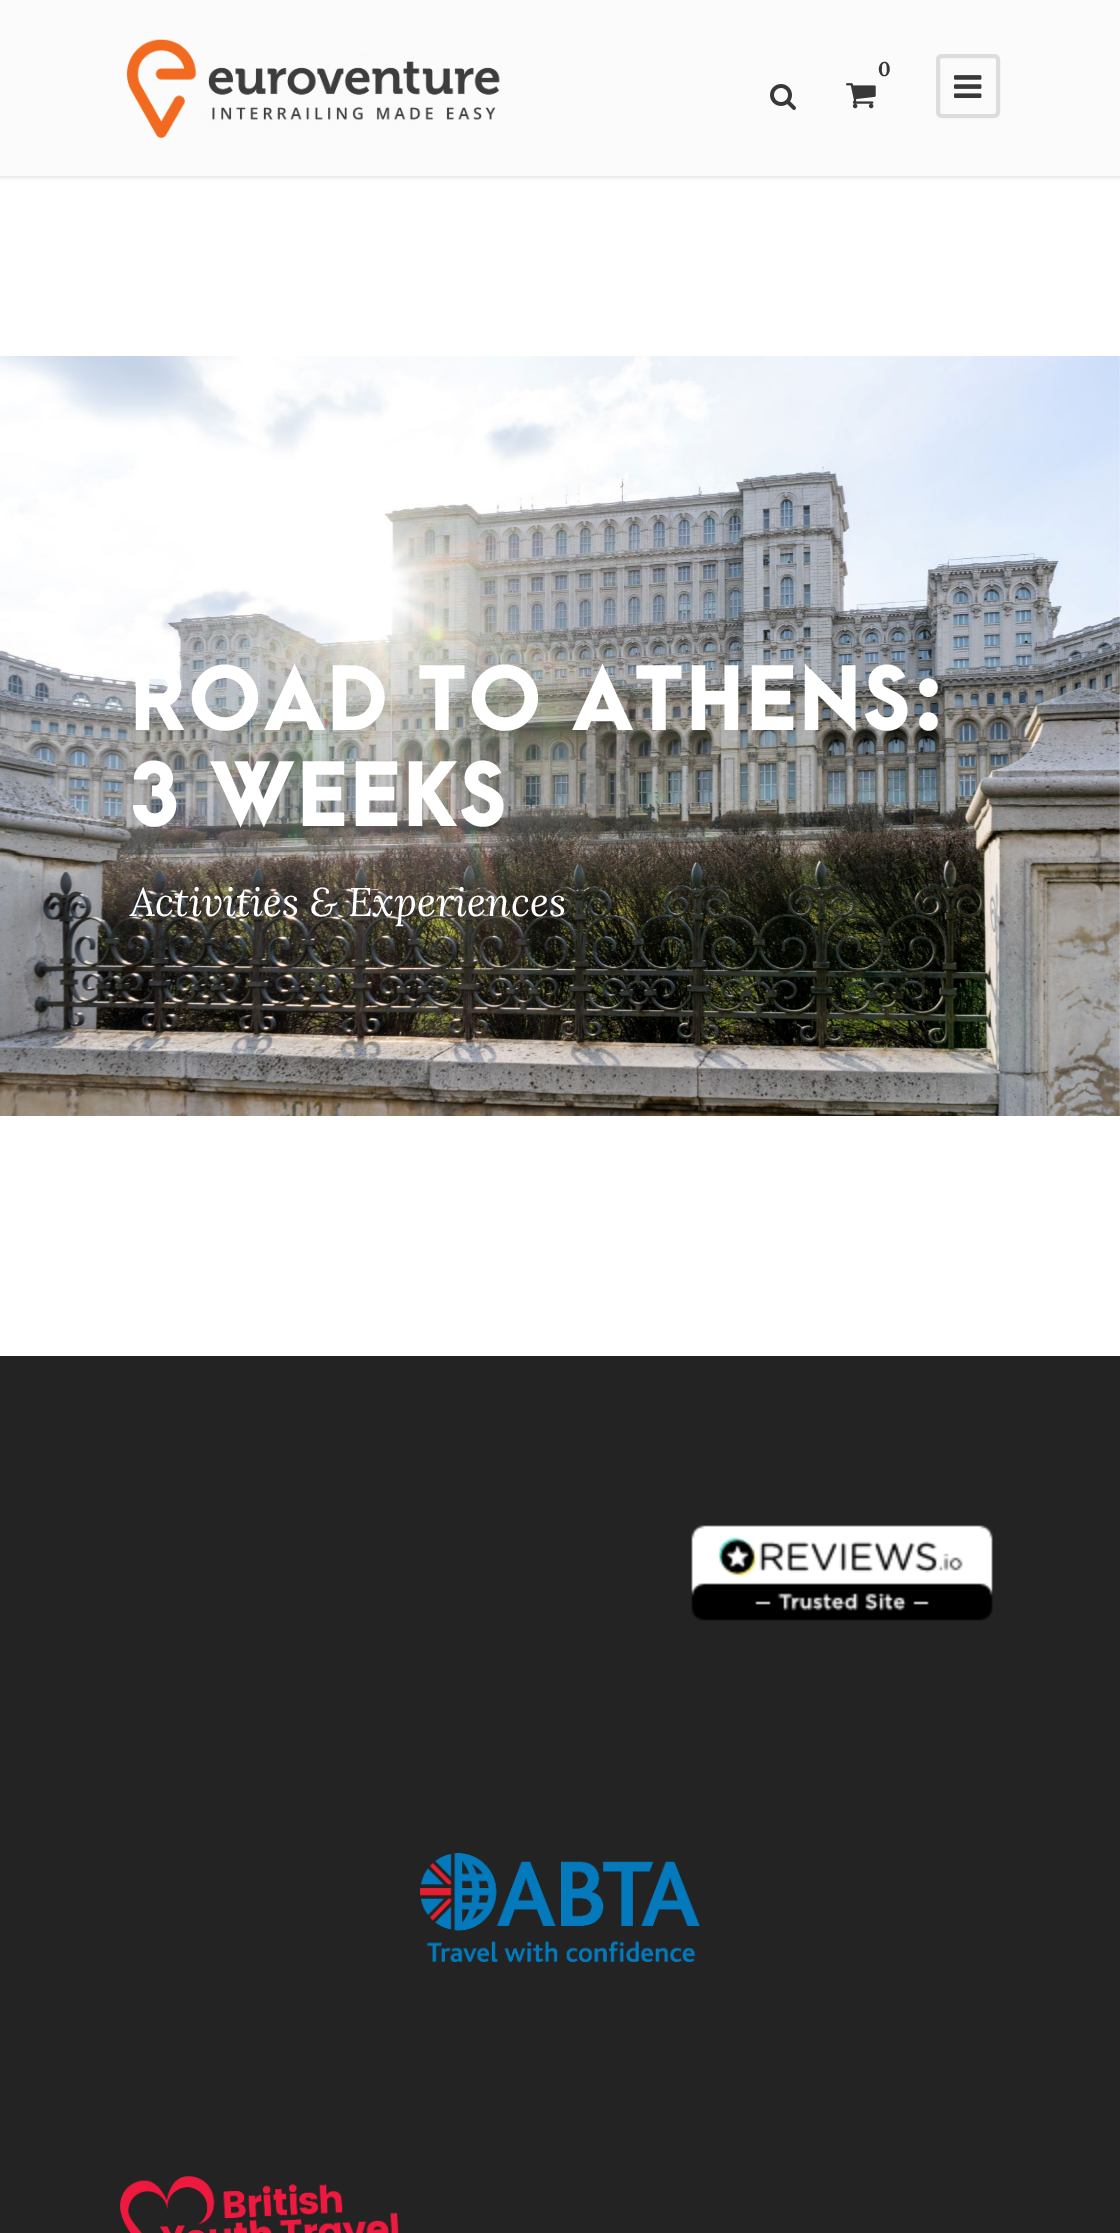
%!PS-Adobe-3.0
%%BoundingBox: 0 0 1120 2233
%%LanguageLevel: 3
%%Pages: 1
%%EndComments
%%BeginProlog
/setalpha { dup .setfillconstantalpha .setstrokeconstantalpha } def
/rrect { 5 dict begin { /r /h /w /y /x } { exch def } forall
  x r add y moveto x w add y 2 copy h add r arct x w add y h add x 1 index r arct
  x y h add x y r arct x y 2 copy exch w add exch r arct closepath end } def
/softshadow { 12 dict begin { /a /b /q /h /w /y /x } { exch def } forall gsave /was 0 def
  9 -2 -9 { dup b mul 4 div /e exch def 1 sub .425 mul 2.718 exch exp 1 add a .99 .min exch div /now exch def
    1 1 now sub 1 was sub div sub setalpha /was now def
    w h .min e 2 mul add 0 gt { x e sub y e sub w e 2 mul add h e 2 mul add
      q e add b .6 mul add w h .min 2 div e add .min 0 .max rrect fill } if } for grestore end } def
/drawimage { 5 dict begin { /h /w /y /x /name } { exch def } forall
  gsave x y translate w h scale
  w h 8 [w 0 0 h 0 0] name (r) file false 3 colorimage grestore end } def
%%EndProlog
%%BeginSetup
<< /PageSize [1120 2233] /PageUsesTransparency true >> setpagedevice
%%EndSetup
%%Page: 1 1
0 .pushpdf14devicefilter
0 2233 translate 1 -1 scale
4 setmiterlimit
1 setgray
0 0 1120 2233 rectfill
0 setgray
0 2 1120 176 0 2 0.1 softshadow
0.984 setgray
0 1 1120 175 rectfill
(images/1.raw) 126 39 374 99 drawimage
(images/2.raw) 846 83 30 26 drawimage
0.867 setgray
4 setlinewidth
938 56 60 60 4 rrect stroke
(images/3.raw) 954 75 28 23 drawimage
(images/4.raw) 770 84 26 26 drawimage
(images/5.raw) 0 356 1120 760 drawimage
0.137 setgray
0 1356 1120 877 rectfill
(images/6.raw) 691 1525 302 96 drawimage
(images/7.raw) 420 1853 280 109 drawimage
(images/8.raw) 120 2176 279 57 drawimage
/Lora-Bold [20 0 0 -20 0 0] selectfont
0.22 setgray
878 76 moveto (0) show
/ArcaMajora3-Black [80 0 0 -80 0 0] selectfont
1 setgray
130 730 moveto 2 0 (ROAD TO ATHENS:) ashow
130 826 moveto 2 0 (3 WEEKS) ashow
/Lora-Italic [40 0 0 -40 0 0] selectfont
130 916 moveto (Activities & Experiences) show
.poppdf14devicefilter showpage
%%EOF
